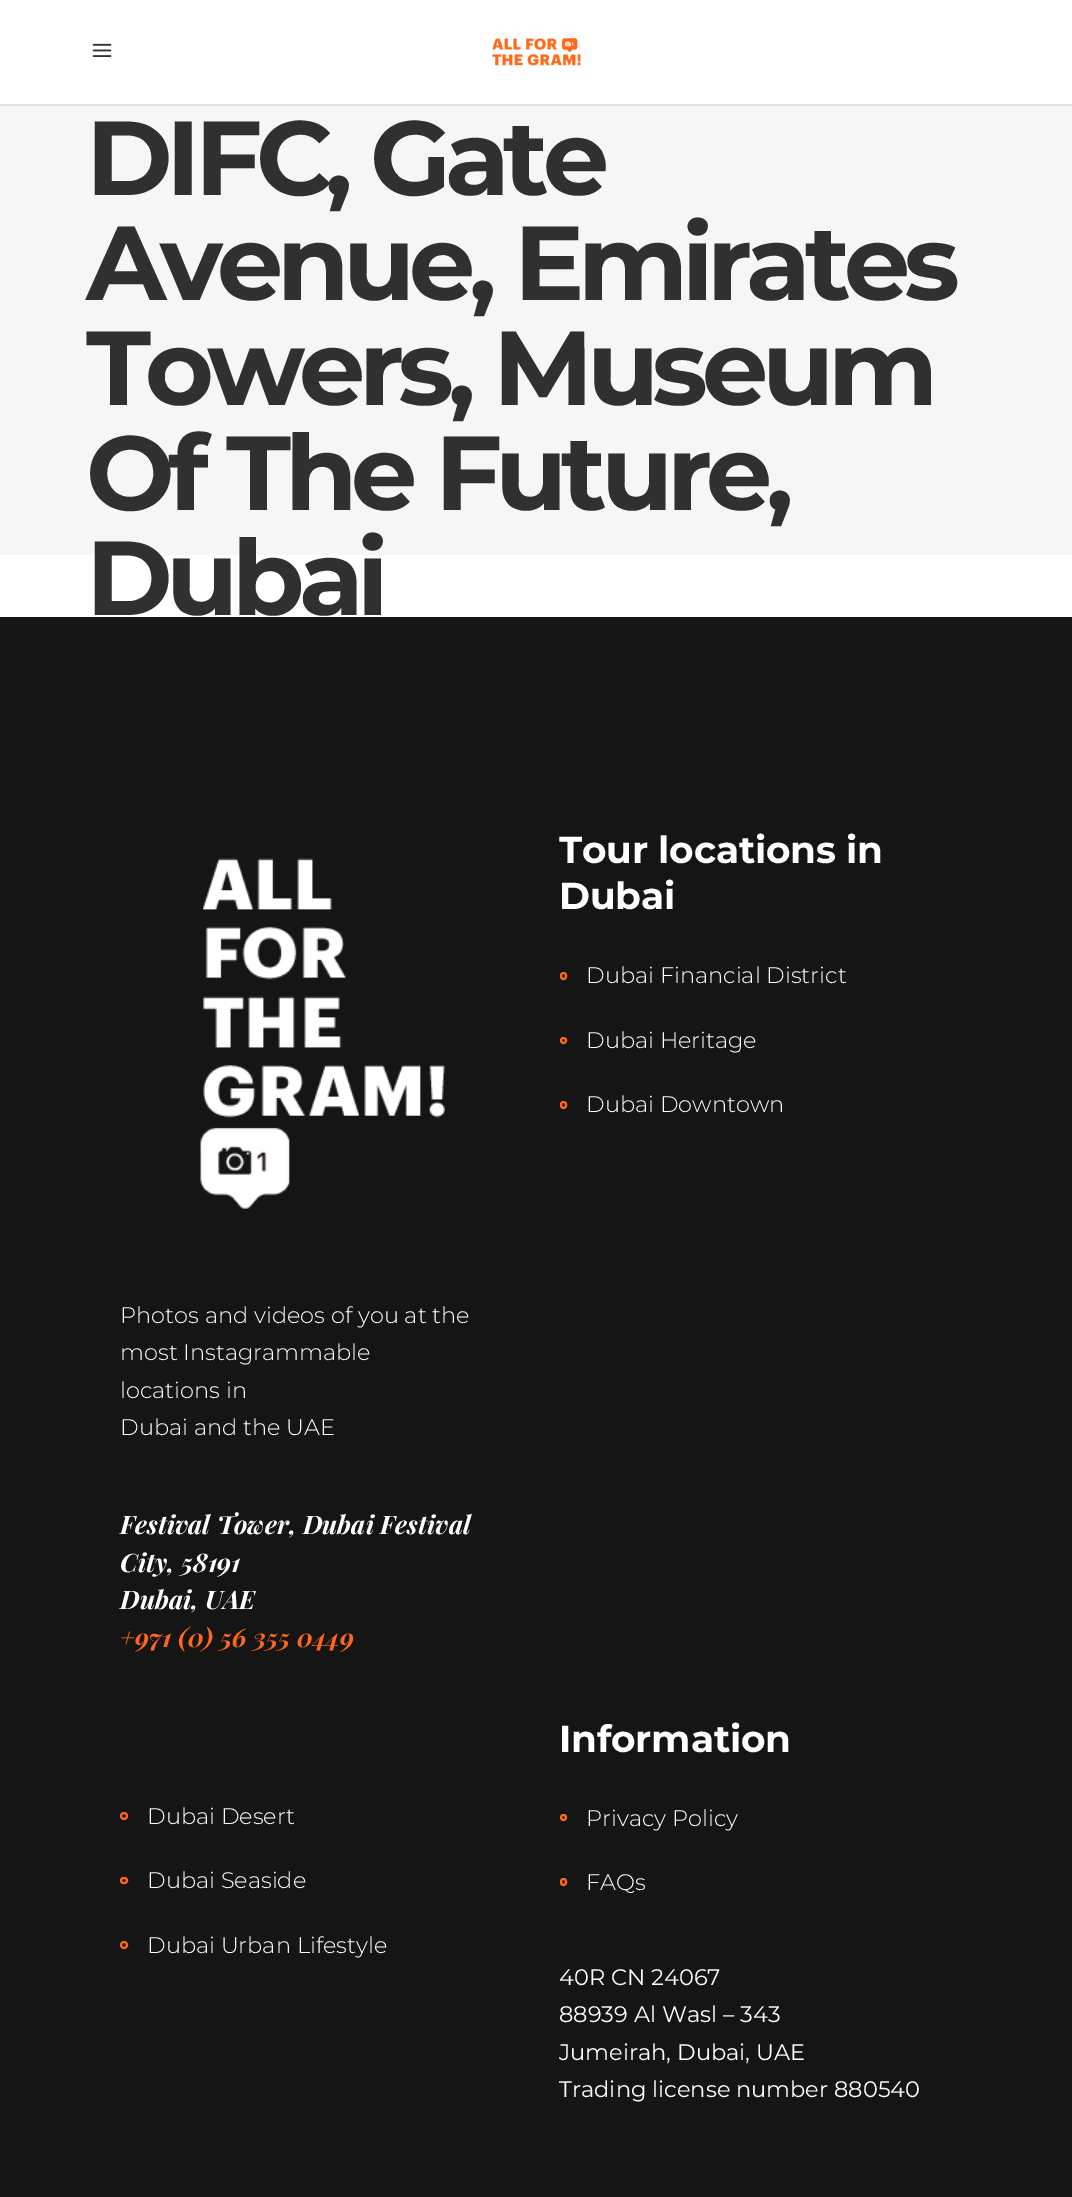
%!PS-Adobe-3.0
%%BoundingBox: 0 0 1072 2197
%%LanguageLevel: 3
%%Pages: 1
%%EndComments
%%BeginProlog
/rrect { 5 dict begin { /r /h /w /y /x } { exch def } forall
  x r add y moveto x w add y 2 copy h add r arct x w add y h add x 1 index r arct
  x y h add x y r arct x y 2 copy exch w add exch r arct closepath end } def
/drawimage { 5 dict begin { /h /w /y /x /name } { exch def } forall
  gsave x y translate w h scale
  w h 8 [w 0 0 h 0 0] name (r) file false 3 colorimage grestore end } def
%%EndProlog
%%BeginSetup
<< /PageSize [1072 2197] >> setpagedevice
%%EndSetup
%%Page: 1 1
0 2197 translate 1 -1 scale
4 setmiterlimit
1 setgray
0 0 1072 2197 rectfill
0.882 setgray
0 104 1072 2 rectfill
(images/1.raw) 92 43 20 14 drawimage
(images/2.raw) 492 38 89 28 drawimage
0.965 setgray
0 106 1072 449 rectfill
0.082 setgray
0 617 1072 1580 rectfill
1 0.408 0.102 setrgbcolor
2 setlinewidth
561 973 5 6 2.5 rrect stroke
newpath 563.5 1040.5 2.5 0 360 arc closepath stroke
561 1102 5 6 2.5 rrect stroke
(images/3.raw) 200 858 245 351 drawimage
newpath 124 1816 3 0 360 arc closepath stroke
121 1878 6 5 2.5 rrect stroke
newpath 124 1945 3 0 360 arc closepath stroke
newpath 563.5 1817.5 2.5 0 360 arc closepath stroke
561 1879 5 6 2.5 rrect stroke
/Montserrat-Bold [105 0 0 -105 0 0] selectfont
0.188 setgray
86 195 moveto -6.25 0 (DIFC, Gate) ashow
86 300 moveto -6.25 0 (Avenue, Emirates) ashow
86 405 moveto -6.25 0 (Towers, Museum) ashow
86 510 moveto -6.25 0 (Of The Future,) ashow
86 615 moveto -6.25 0 (Dubai) ashow
/Montserrat-Bold [37.5 0 0 -37.5 0 0] selectfont
1 setgray
559 863 moveto -0.2 0 (Tour locations in) ashow
559 909 moveto -0.2 0 (Dubai) ashow
/Montserrat-Light [22.5 0 0 -22.5 0 0] selectfont
586 983 moveto (Dubai Financial District) show
586 1048 moveto (Dubai Heritage) show
586 1112 moveto (Dubai Downtown) show
120 1323 moveto (Photos and videos of you at the) show
120 1360 moveto (most Instagrammable) show
120 1398 moveto (locations in) show
120 1435 moveto (Dubai and the UAE) show
/PlayfairDisplay-BoldItalic [25.5 0 0 -25.5 0 0] selectfont
120 1534 moveto (Festival Tower, Dubai Festival) show
120 1572 moveto (City, 58191) show
120 1609 moveto (Dubai, UAE) show
1 0.408 0.102 setrgbcolor
120 1647 moveto (+971 \(0\) 56 355 0449) show
/Montserrat-Light [22.5 0 0 -22.5 0 0] selectfont
1 setgray
147 1824 moveto (Dubai Desert) show
147 1888 moveto (Dubai Seaside) show
147 1953 moveto (Dubai Urban Lifestyle) show
/Montserrat-Bold [37.5 0 0 -37.5 0 0] selectfont
559 1752 moveto -0.2 0 (Information) ashow
/Montserrat-Light [22.5 0 0 -22.5 0 0] selectfont
586 1826 moveto (Privacy Policy) show
586 1890 moveto (FAQs) show
/Montserrat-Regular [22.5 0 0 -22.5 0 0] selectfont
559 1985 moveto (40R CN 24067) show
559 2022 moveto (88939 Al Wasl – 343) show
559 2060 moveto (Jumeirah, Dubai, UAE) show
559 2097 moveto (Trading license number 880540) show
showpage
%%EOF
